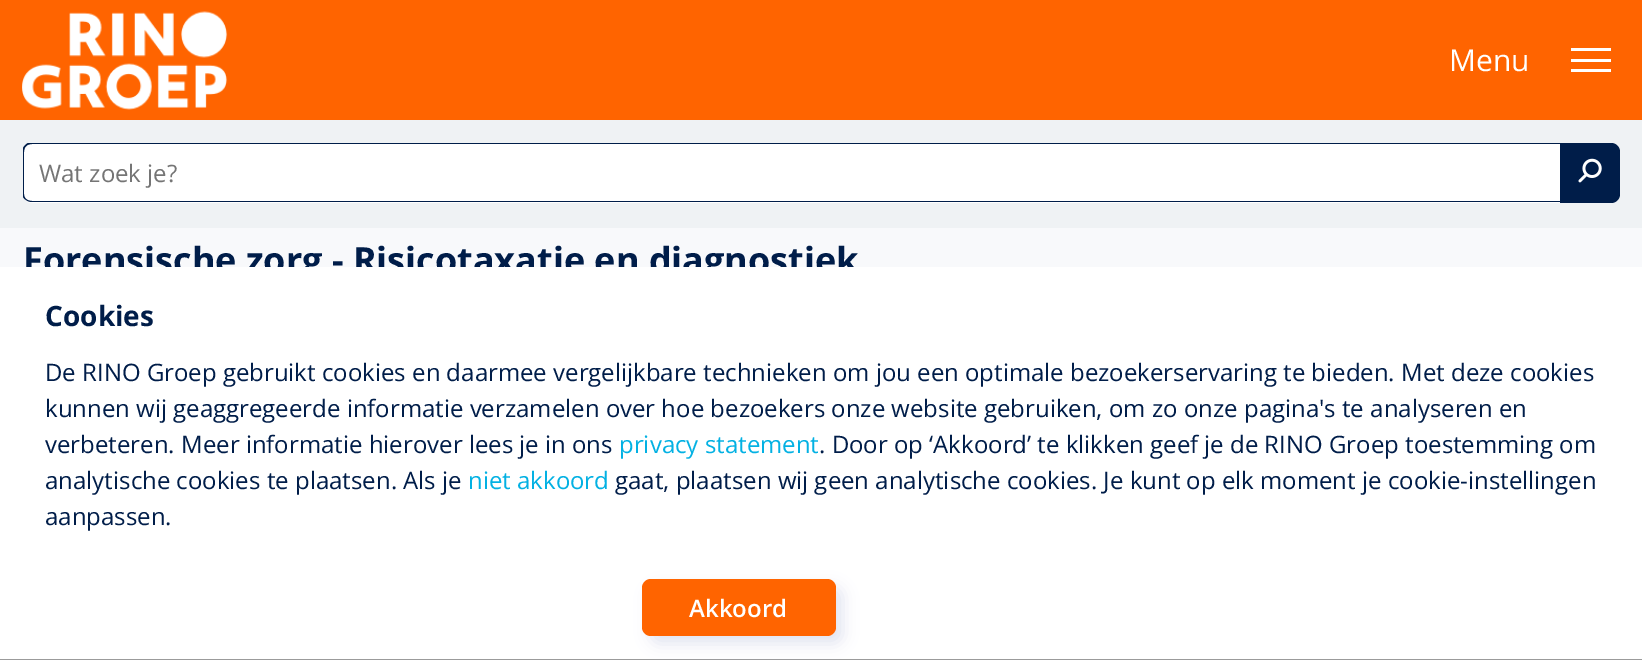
%!PS-Adobe-3.0
%%BoundingBox: 0 0 1642 660
%%LanguageLevel: 3
%%Pages: 1
%%EndComments
%%BeginProlog
/setalpha { dup .setfillconstantalpha .setstrokeconstantalpha } def
/rrect { 5 dict begin { /r /h /w /y /x } { exch def } forall
  x r add y moveto x w add y 2 copy h add r arct x w add y h add x 1 index r arct
  x y h add x y r arct x y 2 copy exch w add exch r arct closepath end } def
/softshadow { 12 dict begin { /a /b /q /h /w /y /x } { exch def } forall gsave /was 0 def
  9 -2 -9 { dup b mul 4 div /e exch def 1 sub .425 mul 2.718 exch exp 1 add a .99 .min exch div /now exch def
    1 1 now sub 1 was sub div sub setalpha /was now def
    w h .min e 2 mul add 0 gt { x e sub y e sub w e 2 mul add h e 2 mul add
      q e add b .6 mul add w h .min 2 div e add .min 0 .max rrect fill } if } for grestore end } def
/drawimage { 5 dict begin { /h /w /y /x /name } { exch def } forall
  gsave x y translate w h scale
  w h 8 [w 0 0 h 0 0] name (r) file false 3 colorimage grestore end } def
%%EndProlog
%%BeginSetup
<< /PageSize [1642 660] /PageUsesTransparency true >> setpagedevice
%%EndSetup
%%Page: 1 1
0 .pushpdf14devicefilter
0 660 translate 1 -1 scale
4 setmiterlimit
0.973 0.976 0.984 setrgbcolor
0 0 1642 660 rectfill
1 0.392 0 setrgbcolor
0 0 1642 120 rectfill
(images/1.raw) 22 11 206 99 drawimage
1 setgray
1571 59 40 3 rectfill
1571 48 40 3 rectfill
1571 69 40 3 rectfill
0.937 0.949 0.957 setrgbcolor
0 120 1642 108 rectfill
1 setgray
newpath 32 143 moveto 1560 143 lineto 1560 203 lineto 32 203 lineto 27 203 23 199 23 194 curveto 23 152 lineto 23 147 27 143 32 143 curveto closepath fill
0 0.114 0.286 setrgbcolor
newpath 32 144 moveto 27 144 24 147 24 152 curveto 24 194 lineto 24 198 27 201 32 201 curveto 1560 201 lineto 1560 202 lineto 32 202 lineto 28 202 25 200 23 197 curveto 23 148 lineto 24 146 26 144 28 143 curveto 1560 143 lineto 1560 144 lineto closepath fill
newpath 1560 143 moveto 1611 143 lineto 1616 143 1620 147 1620 152 curveto 1620 194 lineto 1620 199 1616 203 1611 203 curveto 1560 203 lineto closepath fill
(images/2.raw) 1578 158 24 25 drawimage
0.608 setgray
0 659 1642 1 rectfill
/OpenSans-Regular [30 0 0 -30 0 0] selectfont
1 setgray
1449 71 moveto (Menu) show
/OpenSans-Regular [24 0 0 -24 0 0] selectfont
0.459 setgray
39 182 moveto (Wat zoek je?) show
/OpenSans-Bold [36 0 0 -36 0 0] selectfont
0 0.114 0.286 setrgbcolor
23 273 moveto (Forensische zorg - Risicotaxatie en diagnostiek) show
1 setgray
0 267 1642 392 rectfill
/OpenSans-Bold [28 0 0 -28 0 0] selectfont
0 0.114 0.286 setrgbcolor
45 326 moveto (Cookies) show
/OpenSans-Regular [24 0 0 -24 0 0] selectfont
45 381 moveto (De RINO Groep gebruikt cookies en daarmee vergelijkbare technieken om jou een optimale bezoekerservaring te bieden. Met deze cookies) show
45 417 moveto (kunnen wij geaggregeerde informatie verzamelen over hoe bezoekers onze website gebruiken, om zo onze pagina's te analyseren en) show
45 453 moveto (verbeteren. Meer informatie hierover lees je in ons) show
0.012 0.694 0.89 setrgbcolor
619 453 moveto (privacy statement) show
0 0.114 0.286 setrgbcolor
819 453 moveto (. Door op ‘Akkoord’ te klikken geef je de RINO Groep toestemming om) show
45 489 moveto (analytische cookies te plaatsen. Als je) show
0.012 0.694 0.89 setrgbcolor
468 489 moveto (niet akkoord) show
0 0.114 0.286 setrgbcolor
615 489 moveto (gaat, plaatsen wij geen analytische cookies. Je kunt op elk moment je cookie-instellingen) show
45 525 moveto (aanpassen.) show
0.812 0.835 0.91 setrgbcolor
650 587 193 57 9 7.5 0.6 softshadow
1 0.392 0 setrgbcolor
642 579 194 57 9 rrect fill
/OpenSans-SemiBold [24 0 0 -24 0 0] selectfont
1 setgray
689 617 moveto (Akkoord) show
.poppdf14devicefilter showpage
%%EOF
